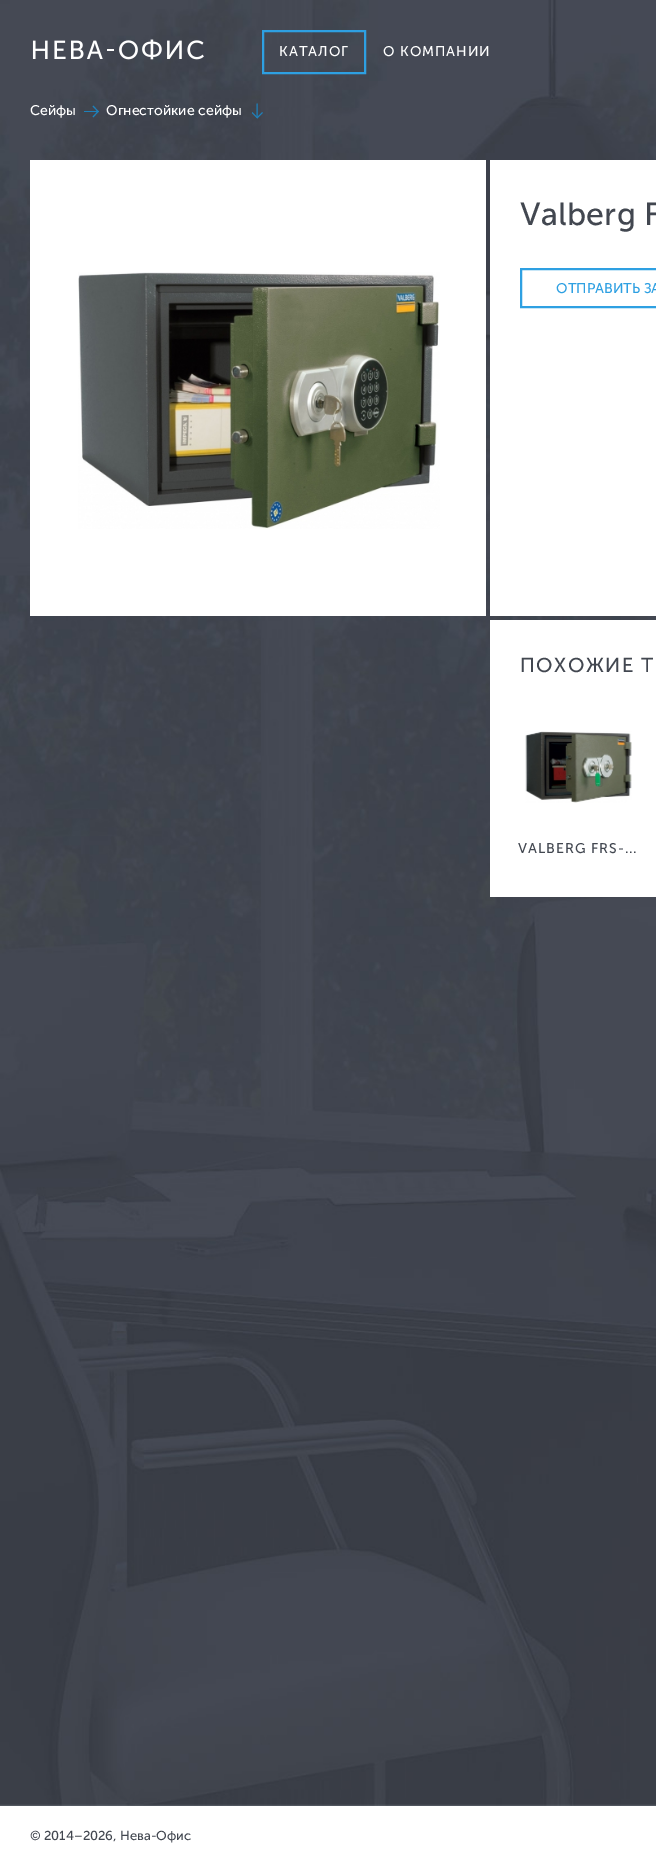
%!PS-Adobe-3.0
%%BoundingBox: 0 0 656 1866
%%LanguageLevel: 3
%%Pages: 1
%%EndComments
%%BeginProlog
/setalpha { dup .setfillconstantalpha .setstrokeconstantalpha } def
/rrect { 5 dict begin { /r /h /w /y /x } { exch def } forall
  x r add y moveto x w add y 2 copy h add r arct x w add y h add x 1 index r arct
  x y h add x y r arct x y 2 copy exch w add exch r arct closepath end } def
/softshadow { 12 dict begin { /a /b /q /h /w /y /x } { exch def } forall gsave /was 0 def
  9 -2 -9 { dup b mul 4 div /e exch def 1 sub .425 mul 2.718 exch exp 1 add a .99 .min exch div /now exch def
    1 1 now sub 1 was sub div sub setalpha /was now def
    w h .min e 2 mul add 0 gt { x e sub y e sub w e 2 mul add h e 2 mul add
      q e add b .6 mul add w h .min 2 div e add .min 0 .max rrect fill } if } for grestore end } def
/drawimage { 5 dict begin { /h /w /y /x /name } { exch def } forall
  gsave x y translate w h scale
  w h 8 [w 0 0 h 0 0] name (r) file false 3 colorimage grestore end } def
%%EndProlog
%%BeginSetup
<< /PageSize [656 1866] /PageUsesTransparency true >> setpagedevice
%%EndSetup
%%Page: 1 1
0 .pushpdf14devicefilter
0 1866 translate 1 -1 scale
4 setmiterlimit
1 setgray
0 0 656 1866 rectfill
(images/1.raw) 0 0 656 1806 drawimage
(images/2.raw) 32 39 172 21 drawimage
0.18 0.627 0.886 setrgbcolor
2 setlinewidth
263 31 102 42 rectstroke
0.114 0.506 0.733 setrgbcolor
84 111 14 1 rectfill
1 setlinewidth
newpath 98.5 111 moveto 93 117 lineto 98.5 112 moveto 93 106 lineto stroke
newpath 257 103.5 moveto 257 117.5 lineto stroke
gsave
newpath 263 103.5 moveto 263 118.5 lineto 252 118.5 lineto 252 103.5 lineto closepath clip newpath
newpath 257.5 118 moveto 252 112.5 lineto stroke
grestore
newpath 257 118 moveto 262.5 112.5 lineto stroke
1 setgray
30 160 456 456 rectfill
(images/3.raw) 78 272 362 257 drawimage
490 160 166 456 rectfill
0.18 0.627 0.886 setrgbcolor
2 setlinewidth
521 269 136 38 rectstroke
1 setgray
490 620 166 277 rectfill
(images/4.raw) 525 731 107 72 drawimage
0.557 0.608 0.639 setrgbcolor
-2 1805 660 60 0 0.5 0.3 softshadow
1 setgray
0 1806 656 60 rectfill
/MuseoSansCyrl-Regular [14 0 0 -14 0 0] selectfont
279 56 moveto 1 0 (КАТАЛОГ) ashow
383 56 moveto 1 0 (О КОМПАНИИ) ashow
30 115 moveto (Сейфы) show
106 115 moveto (Огнестойкие сейфы) show
/MuseoSansCyrl-Regular [32 0 0 -32 0 0] selectfont
0.259 0.278 0.314 setrgbcolor
520 225 moveto 0.25 0 (Valberg F) ashow
/MuseoSansCyrl-Regular [14 0 0 -14 0 0] selectfont
0.18 0.627 0.886 setrgbcolor
556 293 moveto (ОТПРАВИТЬ ЗА) show
/MuseoSansCyrl-Regular [20 0 0 -20 0 0] selectfont
0.259 0.278 0.314 setrgbcolor
520 672 moveto 1.5 0 (ПОХОЖИЕ Т) ashow
/MuseoSansCyrl-Regular [14 0 0 -14 0 0] selectfont
518 853 moveto 1 0 (VALBERG FRS-...) ashow
/MuseoSansCyrl-Regular [13 0 0 -13 0 0] selectfont
30 1840 moveto (© 2014–2026, Нева-Офис) show
.poppdf14devicefilter showpage
%%EOF
